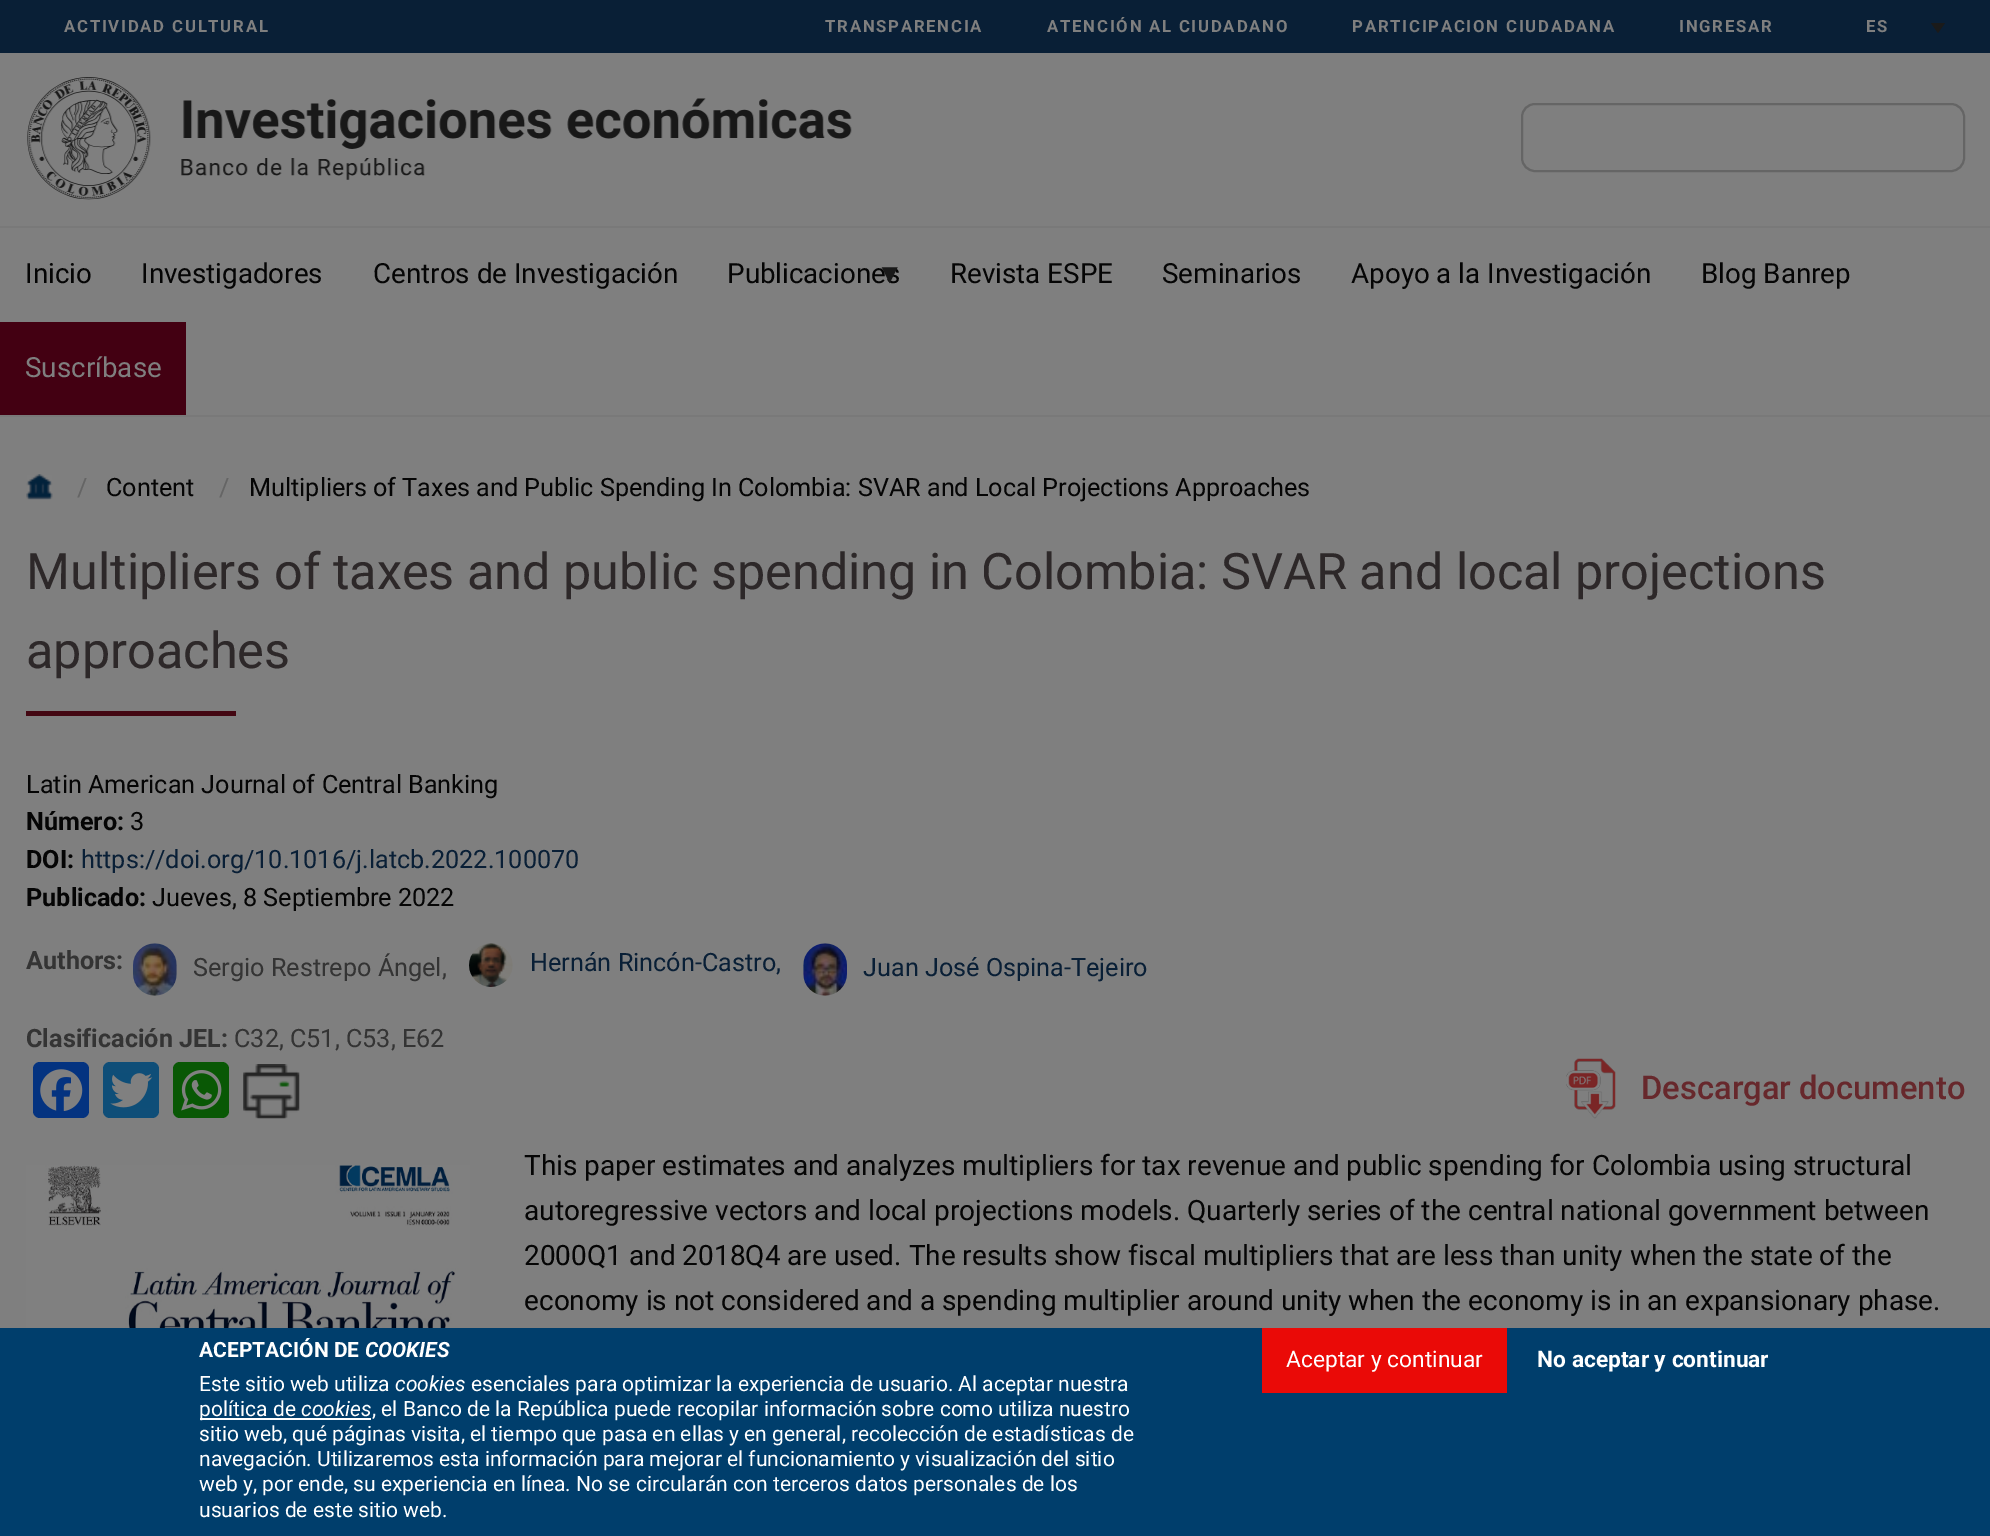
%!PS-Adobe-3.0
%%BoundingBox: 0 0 1990 1536
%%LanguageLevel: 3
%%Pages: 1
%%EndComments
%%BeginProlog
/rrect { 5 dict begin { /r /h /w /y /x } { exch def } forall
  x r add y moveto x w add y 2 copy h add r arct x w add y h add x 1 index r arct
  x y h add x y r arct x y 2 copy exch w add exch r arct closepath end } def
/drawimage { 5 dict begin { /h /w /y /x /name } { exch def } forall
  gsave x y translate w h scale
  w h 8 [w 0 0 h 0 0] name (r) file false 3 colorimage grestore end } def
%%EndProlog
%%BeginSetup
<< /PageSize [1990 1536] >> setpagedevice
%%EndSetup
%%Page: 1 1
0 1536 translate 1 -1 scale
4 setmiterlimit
0.035 0.122 0.212 setrgbcolor
0 0 1990 1536 rectfill
0.102 setgray
newpath 1931 23 moveto 1945 23 lineto 1938 33 lineto closepath fill
0.498 setgray
0 53 1990 362 rectfill
0.475 setgray
0 415 1990 2 rectfill
(images/1.raw) 27 77 825 123 drawimage
0.396 setgray
2 setlinewidth
1522 104 442 67 13 rrect stroke
0.475 setgray
0 226 1990 2 rectfill
0.263 0 0.071 setrgbcolor
0 322 186 93 rectfill
0.498 setgray
0 417 1990 911 rectfill
(images/2.raw) 26 474 27 26 drawimage
0.263 0.027 0.071 setrgbcolor
26 711 210 5 rectfill
(images/3.raw) 133 943 44 53 drawimage
(images/4.raw) 469 943 44 44 drawimage
(images/5.raw) 803 943 44 53 drawimage
0.016 0.2 0.502 setrgbcolor
33 1062 56 56 7 rrect fill
(images/6.raw) 40 1069 43 42 drawimage
0.059 0.306 0.471 setrgbcolor
103 1062 56 56 7 rrect fill
(images/7.raw) 110 1073 43 35 drawimage
0.035 0.345 0.02 setrgbcolor
173 1062 56 56 7 rrect fill
(images/8.raw) 181 1070 41 41 drawimage
(images/9.raw) 243 1064 57 55 drawimage
(images/10.raw) 1566 1058 50 61 drawimage
(images/11.raw) 26 1165 445 163 drawimage
0 0.243 0.424 setrgbcolor
0 1328 1990 208 rectfill
1 setgray
200 1418 171 2 rectfill
0.918 0.039 0.027 setrgbcolor
1262 1328 245 65 rectfill
/Roboto-Bold [16.75 0 0 -16.75 0 0] selectfont
0.498 setgray
64 32 moveto 1.75 0 (ACTIVIDAD CULTURAL) ashow
825 32 moveto 1.75 0 (TRANSPARENCIA) ashow
1047 32 moveto 1.75 0 (ATENCIÓN AL CIUDADANO) ashow
1352 32 moveto 1.75 0 (PARTICIPACION CIUDADANA) ashow
1679 32 moveto 1.75 0 (INGRESAR) ashow
1866 32 moveto 1.75 0 (ES) ashow
/Roboto-Regular [27.75 0 0 -27.75 0 0] selectfont
0.02 setgray
25 283 moveto (Inicio) show
141 283 moveto (Investigadores) show
373 283 moveto (Centros de Investigación) show
727 283 moveto (Publicaciones) show
/LiberationSans-Regular [27.75 0 0 -27.75 0 0] selectfont
0.102 setgray
876 283 moveto (▼) show
/Roboto-Regular [27.75 0 0 -27.75 0 0] selectfont
0.02 setgray
950 283 moveto (Revista ESPE) show
1162 283 moveto (Seminarios) show
1351 283 moveto (Apoyo a la Investigación) show
1701 283 moveto (Blog Banrep) show
0.498 setgray
25 377 moveto (Suscríbase) show
/Roboto-Regular [25.2 0 0 -25.2 0 0] selectfont
0.396 setgray
77 496 moveto (/) show
0.02 setgray
106 496 moveto (Content) show
0.396 setgray
219 496 moveto (/) show
0.02 setgray
249 496 moveto (Multipliers of Taxes and Public Spending In Colombia: SVAR and Local Projections Approaches) show
/Roboto-Regular [50.4 0 0 -50.4 0 0] selectfont
0.176 0.157 0.161 setrgbcolor
26 589 moveto (Multipliers of taxes and public spending in Colombia: SVAR and local projections) show
26 668 moveto (approaches) show
/Roboto-Regular [25.2 0 0 -25.2 0 0] selectfont
0.02 setgray
26 793 moveto (Latin American Journal of Central Banking) show
/Roboto-Bold [25.2 0 0 -25.2 0 0] selectfont
26 830 moveto (Número:) show
/Roboto-Regular [25.2 0 0 -25.2 0 0] selectfont
130 830 moveto (3) show
/Roboto-Bold [25.2 0 0 -25.2 0 0] selectfont
26 868 moveto (DOI:) show
/Roboto-Regular [25.2 0 0 -25.2 0 0] selectfont
0.035 0.122 0.212 setrgbcolor
81 868 moveto (https://doi.org/10.1016/j.latcb.2022.100070) show
/Roboto-Bold [25.2 0 0 -25.2 0 0] selectfont
0.02 setgray
26 906 moveto (Publicado:) show
/Roboto-Regular [25.2 0 0 -25.2 0 0] selectfont
152 906 moveto (Jueves, 8 Septiembre 2022) show
/Roboto-Bold [25.2 0 0 -25.2 0 0] selectfont
0.204 setgray
26 969 moveto (Authors:) show
/Roboto-Regular [25.2 0 0 -25.2 0 0] selectfont
193 976 moveto (Sergio Restrepo Ángel,) show
0.035 0.122 0.212 setrgbcolor
530 971 moveto (Hernán Rincón-Castro,) show
863 976 moveto (Juan José Ospina-Tejeiro) show
/Roboto-Bold [25.2 0 0 -25.2 0 0] selectfont
0.204 setgray
26 1047 moveto (Clasificación JEL:) show
/Roboto-Regular [25.2 0 0 -25.2 0 0] selectfont
234 1047 moveto (C32, C51, C53, E62) show
/Roboto-Medium [32.75 0 0 -32.75 0 0] selectfont
0.404 0.157 0.173 setrgbcolor
1641 1099 moveto (Descargar documento) show
/Roboto-Regular [28 0 0 -28 0 0] selectfont
0.02 setgray
524 1175 moveto (This paper estimates and analyzes multipliers for tax revenue and public spending for Colombia using structural) show
524 1220 moveto (autoregressive vectors and local projections models. Quarterly series of the central national government between) show
524 1265 moveto (2000Q1 and 2018Q4 are used. The results show fiscal multipliers that are less than unity when the state of the) show
524 1310 moveto (economy is not considered and a spending multiplier around unity when the economy is in an expansionary phase.) show
/Roboto-Bold [21 0 0 -21 0 0] selectfont
1 setgray
199 1357 moveto (ACEPTACIÓN DE) show
/Roboto-BoldItalic [21 0 0 -21 0 0] selectfont
365 1357 moveto (COOKIES) show
/Roboto-Regular [21 0 0 -21 0 0] selectfont
199 1391 moveto (Este sitio web utiliza) show
/Roboto-Italic [21 0 0 -21 0 0] selectfont
395 1391 moveto (cookies) show
/Roboto-Regular [21 0 0 -21 0 0] selectfont
471 1391 moveto (esenciales para optimizar la experiencia de usuario. Al aceptar nuestra) show
199 1416 moveto (política de) show
/Roboto-Italic [21 0 0 -21 0 0] selectfont
301 1416 moveto (cookies) show
/Roboto-Regular [21 0 0 -21 0 0] selectfont
372 1416 moveto (, el Banco de la República puede recopilar información sobre como utiliza nuestro) show
199 1441 moveto (sitio web, qué páginas visita, el tiempo que pasa en ellas y en general, recolección de estadísticas de) show
199 1466 moveto (navegación. Utilizaremos esta información para mejorar el funcionamiento y visualización del sitio) show
199 1491 moveto (web y, por ende, su experiencia en línea. No se circularán con terceros datos personales de los) show
199 1517 moveto (usuarios de este sitio web.) show
/Roboto-Regular [22.75 0 0 -22.75 0 0] selectfont
1286 1367 moveto (Aceptar y continuar) show
/Roboto-Bold [22.75 0 0 -22.75 0 0] selectfont
1537 1367 moveto (No aceptar y continuar) show
showpage
%%EOF
